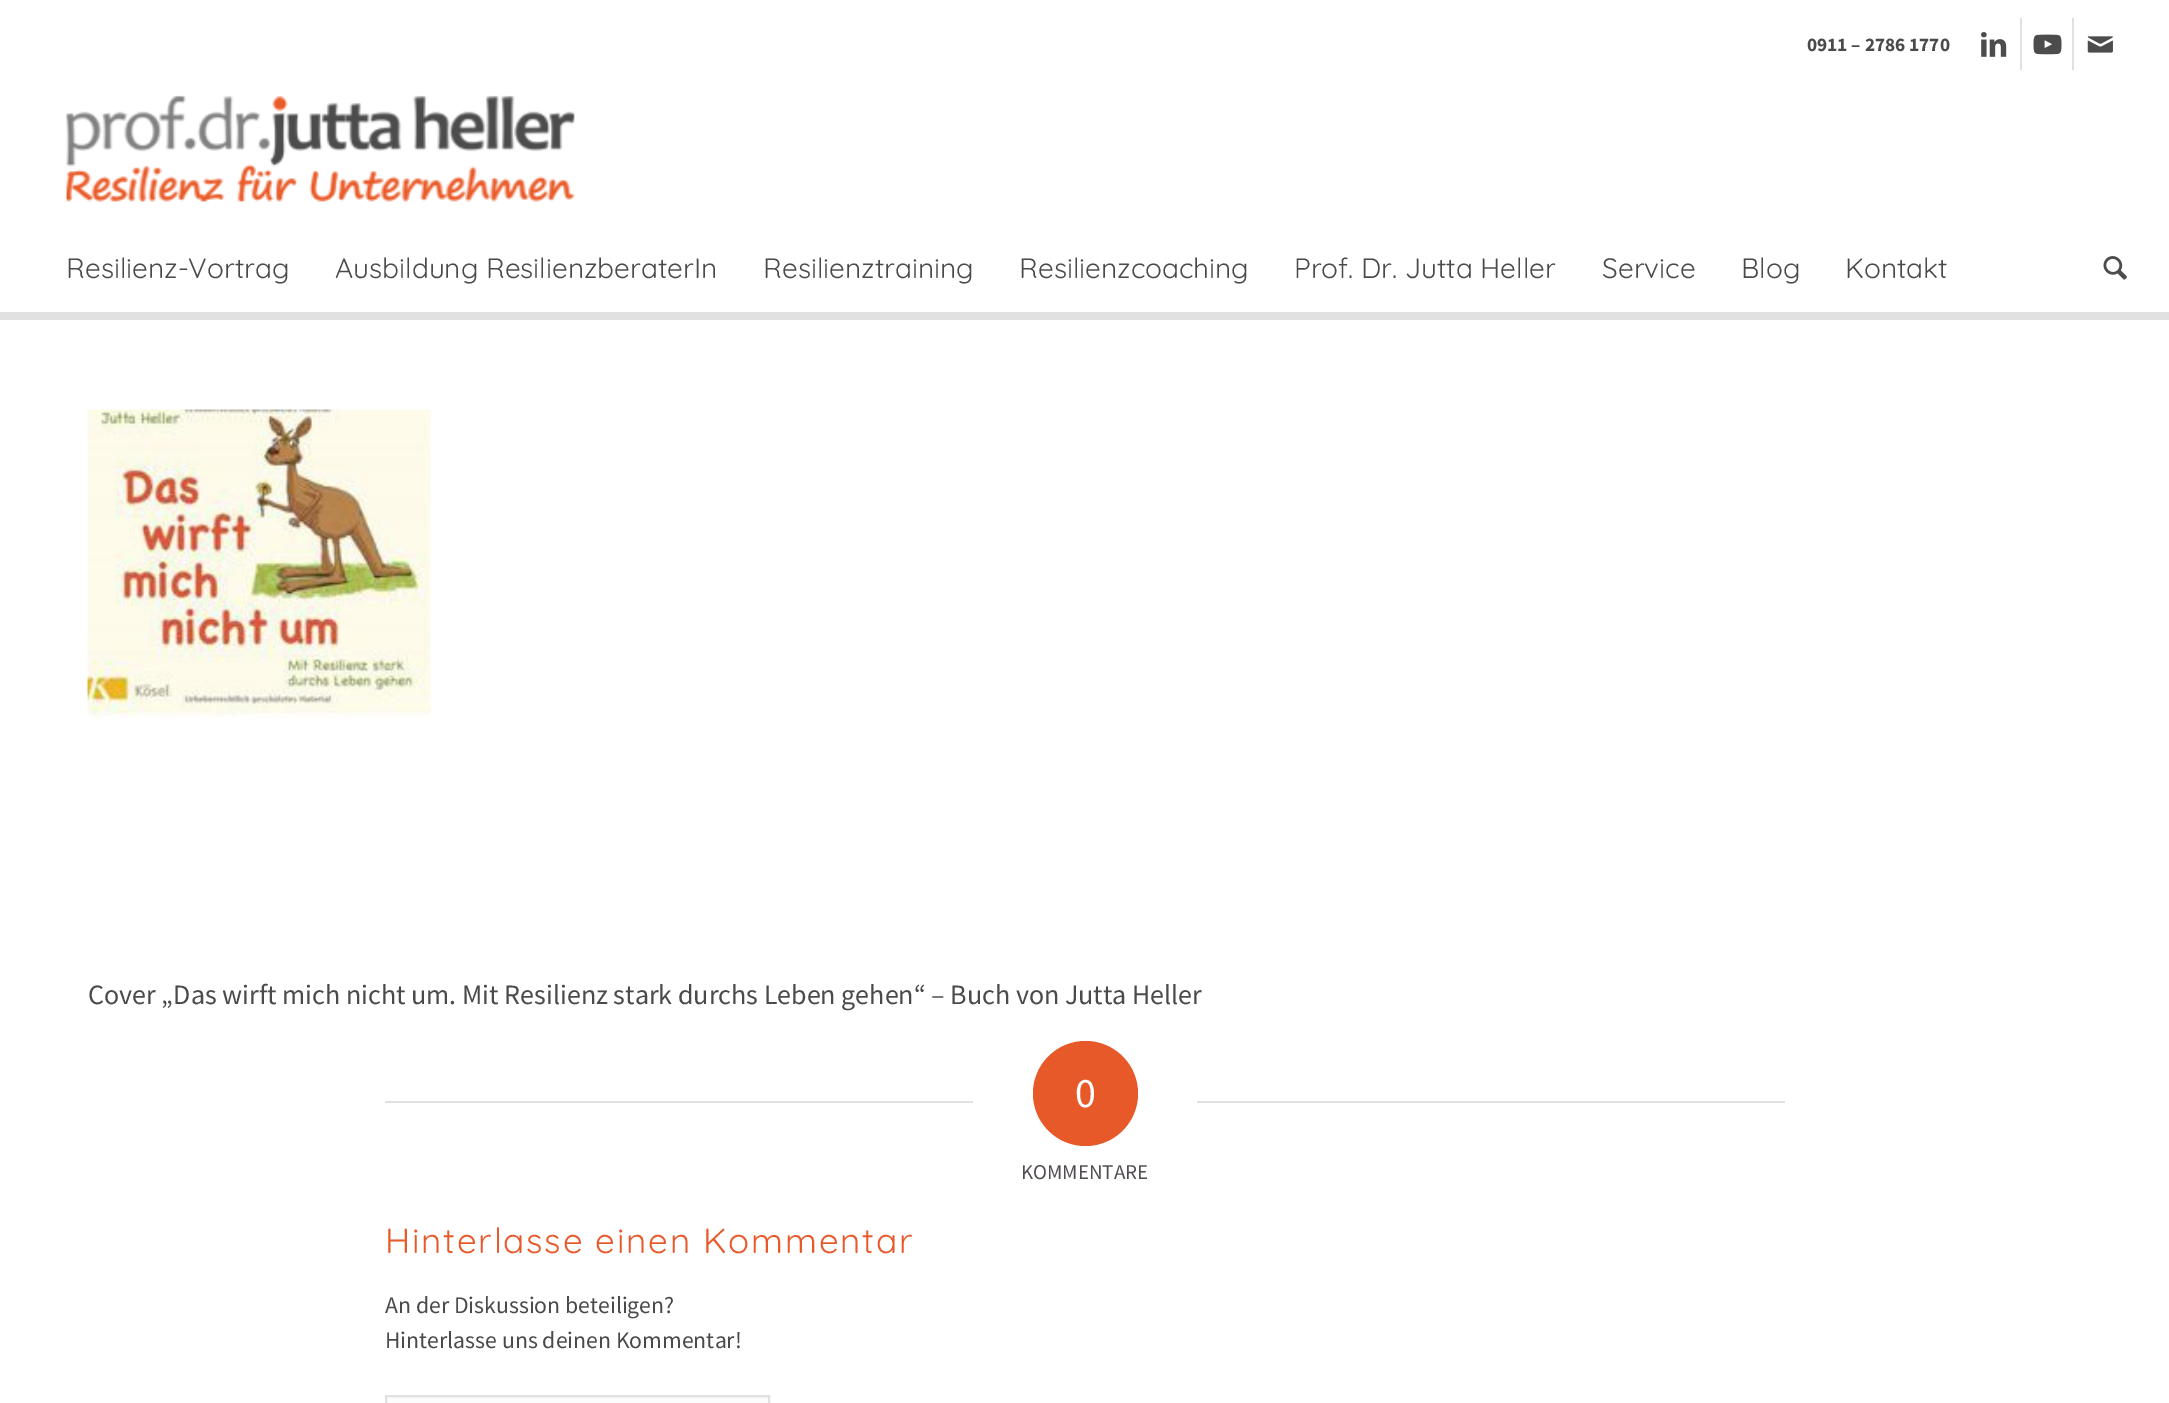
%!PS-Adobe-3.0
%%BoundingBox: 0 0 2169 1403
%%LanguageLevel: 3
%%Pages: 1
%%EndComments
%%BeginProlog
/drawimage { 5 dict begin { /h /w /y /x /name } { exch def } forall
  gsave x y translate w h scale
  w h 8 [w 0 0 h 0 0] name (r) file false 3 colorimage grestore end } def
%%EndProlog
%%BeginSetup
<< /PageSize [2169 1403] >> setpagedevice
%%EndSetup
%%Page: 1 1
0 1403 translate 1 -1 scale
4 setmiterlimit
1 setgray
0 0 2169 1403 rectfill
0.882 setgray
2020 18 2 52 rectfill
(images/1.raw) 1981 32 26 25 drawimage
2072 18 2 52 rectfill
(images/2.raw) 2033 34 29 21 drawimage
(images/3.raw) 2087 36 26 17 drawimage
0 312 2169 8 rectfill
(images/4.raw) 66 95 509 107 drawimage
(images/5.raw) 2103 256 24 24 drawimage
(images/6.raw) 87 409 344 310 drawimage
385 1101 588 2 rectfill
0.91 0.349 0.165 setrgbcolor
newpath 1085.5 1093.5 52.5 0 360 arc closepath fill
0.882 setgray
1197 1101 588 2 rectfill
0.988 setgray
newpath 386 1396 moveto 769 1396 lineto 769 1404 lineto 386 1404 lineto closepath gsave fill grestore
0.882 setgray
2 setlinewidth
stroke
/SourceSansPro-Bold [19.25 0 0 -19.25 0 0] selectfont
0.29 setgray
1807 51 moveto (0911 – 2786 1770) show
/Quicksand-Regular [28 0 0 -28 0 0] selectfont
66 278 moveto (Resilienz-Vortrag) show
335 278 moveto (Ausbildung ResilienzberaterIn) show
763 278 moveto (Resilienztraining) show
1019 278 moveto (Resilienzcoaching) show
1294 278 moveto (Prof. Dr. Jutta Heller) show
1602 278 moveto (Service) show
1741 278 moveto (Blog) show
1845 278 moveto (Kontakt) show
/SourceSansPro-Regular [28 0 0 -28 0 0] selectfont
88 1004 moveto (Cover „Das wirft mich nicht um. Mit Resilienz stark durchs Leben gehen“ – Buch von Jutta Heller) show
/SourceSansPro-Regular [42 0 0 -42 0 0] selectfont
1 setgray
1075 1107 moveto (0) show
/SourceSansPro-Regular [21 0 0 -21 0 0] selectfont
0.322 0.302 0.325 setrgbcolor
1021 1179 moveto (KOMMENTARE) show
/Quicksand-Regular [35 0 0 -35 0 0] selectfont
0.91 0.349 0.165 setrgbcolor
385 1253 moveto 1.75 0 (Hinterlasse einen Kommentar) ashow
/SourceSansPro-Regular [23.75 0 0 -23.75 0 0] selectfont
0.29 setgray
385 1313 moveto (An der Diskussion beteiligen?) show
385 1348 moveto (Hinterlasse uns deinen Kommentar!) show
showpage
%%EOF
